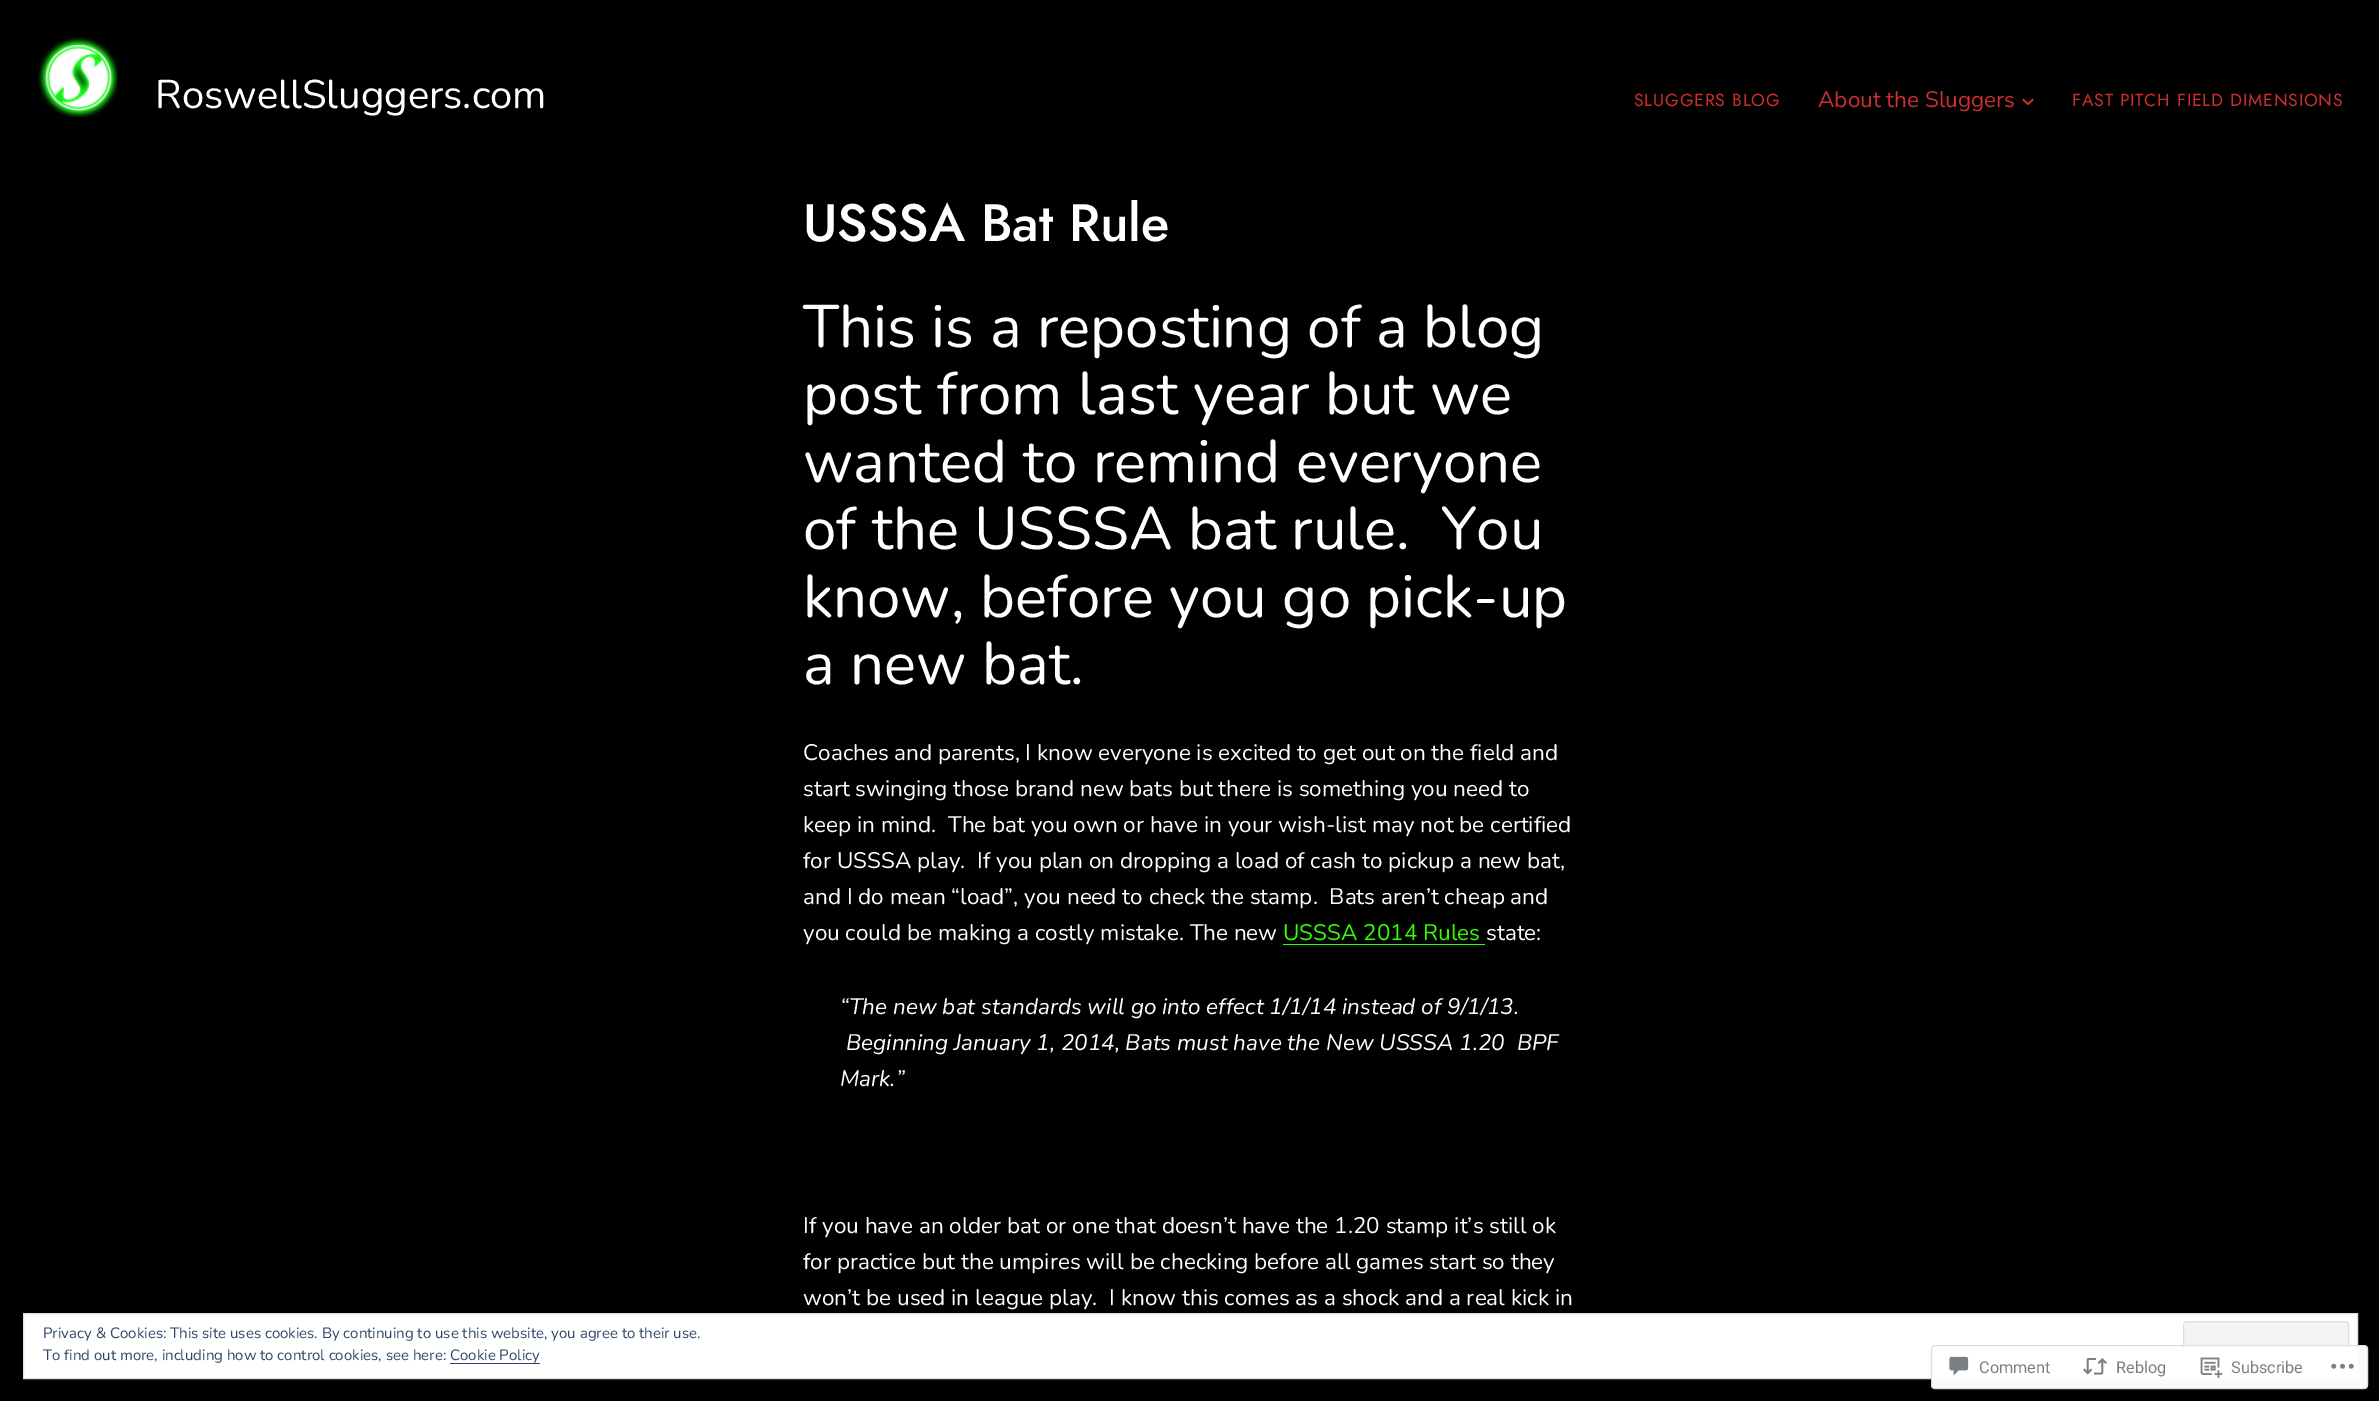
%!PS-Adobe-3.0
%%BoundingBox: 0 0 2379 1401
%%LanguageLevel: 3
%%Pages: 1
%%EndComments
%%BeginProlog
/setalpha { dup .setfillconstantalpha .setstrokeconstantalpha } def
/rrect { 5 dict begin { /r /h /w /y /x } { exch def } forall
  x r add y moveto x w add y 2 copy h add r arct x w add y h add x 1 index r arct
  x y h add x y r arct x y 2 copy exch w add exch r arct closepath end } def
/drawimage { 5 dict begin { /h /w /y /x /name } { exch def } forall
  gsave x y translate w h scale
  w h 8 [w 0 0 h 0 0] name (r) file false 3 colorimage grestore end } def
%%EndProlog
%%BeginSetup
<< /PageSize [2379 1401] /PageUsesTransparency true >> setpagedevice
%%EndSetup
%%Page: 1 1
0 .pushpdf14devicefilter
0 1401 translate 1 -1 scale
4 setmiterlimit
0 setgray
0 0 2379 1401 rectfill
(images/1.raw) 37 37 81 81 drawimage
0.812 0.18 0.18 setrgbcolor
1.7 setlinewidth
newpath 2023 99.5 moveto 2028 104 lineto 2033 99.5 lineto stroke
0.196 1 0 setrgbcolor
1283 944 202 1 rectfill
1 setgray
newpath 23.5 1313.5 moveto 2357.5 1313.5 lineto 2357.5 1378.5 lineto 23.5 1378.5 lineto closepath gsave fill grestore
0.871 setgray
1 setlinewidth
stroke
0.953 setgray
2183.5 1321.5 165 48 3.5 rrect gsave fill grestore
0.871 setgray
stroke
0.98 setalpha
1 setgray
1931 1345 437 44 4 rrect fill
0.863 0.863 0.871 setrgbcolor
1931.5 1345.5 436 43 3.5 rrect stroke
1 setalpha
(images/2.raw) 1949 1356 20 20 drawimage
(images/3.raw) 2083 1357 24 18 drawimage
(images/4.raw) 2200 1357 23 21 drawimage
(images/5.raw) 2331 1363 23 6 drawimage
0.18 0.267 0.404 setrgbcolor
450 1363 90 1 rectfill
/Nunito-Regular [40 0 0 -40 0 0] selectfont
1 setgray
155 108 moveto (RoswellSluggers.com) show
/Jost-Regular [17.5 0 0 -17.5 0 0] selectfont
0.812 0.18 0.18 setrgbcolor
1634 106 moveto 0.9 0 (SLUGGERS BLOG) ashow
/Nunito-Regular [22.5 0 0 -22.5 0 0] selectfont
1818 107 moveto (About the Sluggers) show
/Jost-Regular [17.5 0 0 -17.5 0 0] selectfont
2072 106 moveto 0.9 0 (FAST PITCH FIELD DIMENSIONS) ashow
/Jost-Medium [52.5 0 0 -52.5 0 0] selectfont
1 setgray
803 241 moveto (USSSA Bat Rule) show
/Nunito-Regular [60 0 0 -60 0 0] selectfont
803 347 moveto (This is a reposting of a blog) show
803 414 moveto (post from last year but we) show
803 482 moveto (wanted to remind everyone) show
803 549 moveto (of the USSSA bat rule.  You) show
803 617 moveto (know, before you go pick-up) show
803 684 moveto (a new bat.) show
/Nunito-Regular [22.5 0 0 -22.5 0 0] selectfont
803 760 moveto (Coaches and parents, I know everyone is excited to get out on the field and) show
803 796 moveto (start swinging those brand new bats but there is something you need to) show
803 832 moveto (keep in mind.  The bat you own or have in your wish-list may not be certified) show
803 868 moveto (for USSSA play.  If you plan on dropping a load of cash to pickup a new bat,) show
803 904 moveto (and I do mean “load”, you need to check the stamp.  Bats aren’t cheap and) show
803 940 moveto (you could be making a costly mistake. The new) show
0.196 1 0 setrgbcolor
1283 940 moveto (USSSA 2014 Rules) show
1 setgray
1486 940 moveto (state:) show
/Nunito-Italic [22.5 0 0 -22.5 0 0] selectfont
840 1014 moveto (“The new bat standards will go into effect 1/1/14 instead of 9/1/13.) show
846 1050 moveto (Beginning January 1, 2014, Bats must have the New USSSA 1.20  BPF) show
840 1086 moveto (Mark.”) show
/Nunito-Regular [22.5 0 0 -22.5 0 0] selectfont
803 1233 moveto (If you have an older bat or one that doesn’t have the 1.20 stamp it’s still ok) show
803 1269 moveto (for practice but the umpires will be checking before all games start so they) show
803 1305 moveto (won’t be used in league play.  I know this comes as a shock and a real kick in) show
/Roboto-Regular [16.25 0 0 -16.25 0 0] selectfont
0.482 0.498 0.522 setrgbcolor
1979 1373 moveto (Comment) show
2116 1373 moveto (Reblog) show
2231 1373 moveto (Subscribe) show
/Nunito-Regular [15 0 0 -15 0 0] selectfont
0.18 0.267 0.404 setrgbcolor
43 1338 moveto (Privacy & Cookies: This site uses cookies. By continuing to use this website, you agree to their use.) show
43 1360 moveto (To find out more, including how to control cookies, see here: Cookie Policy) show
.poppdf14devicefilter showpage
%%EOF
